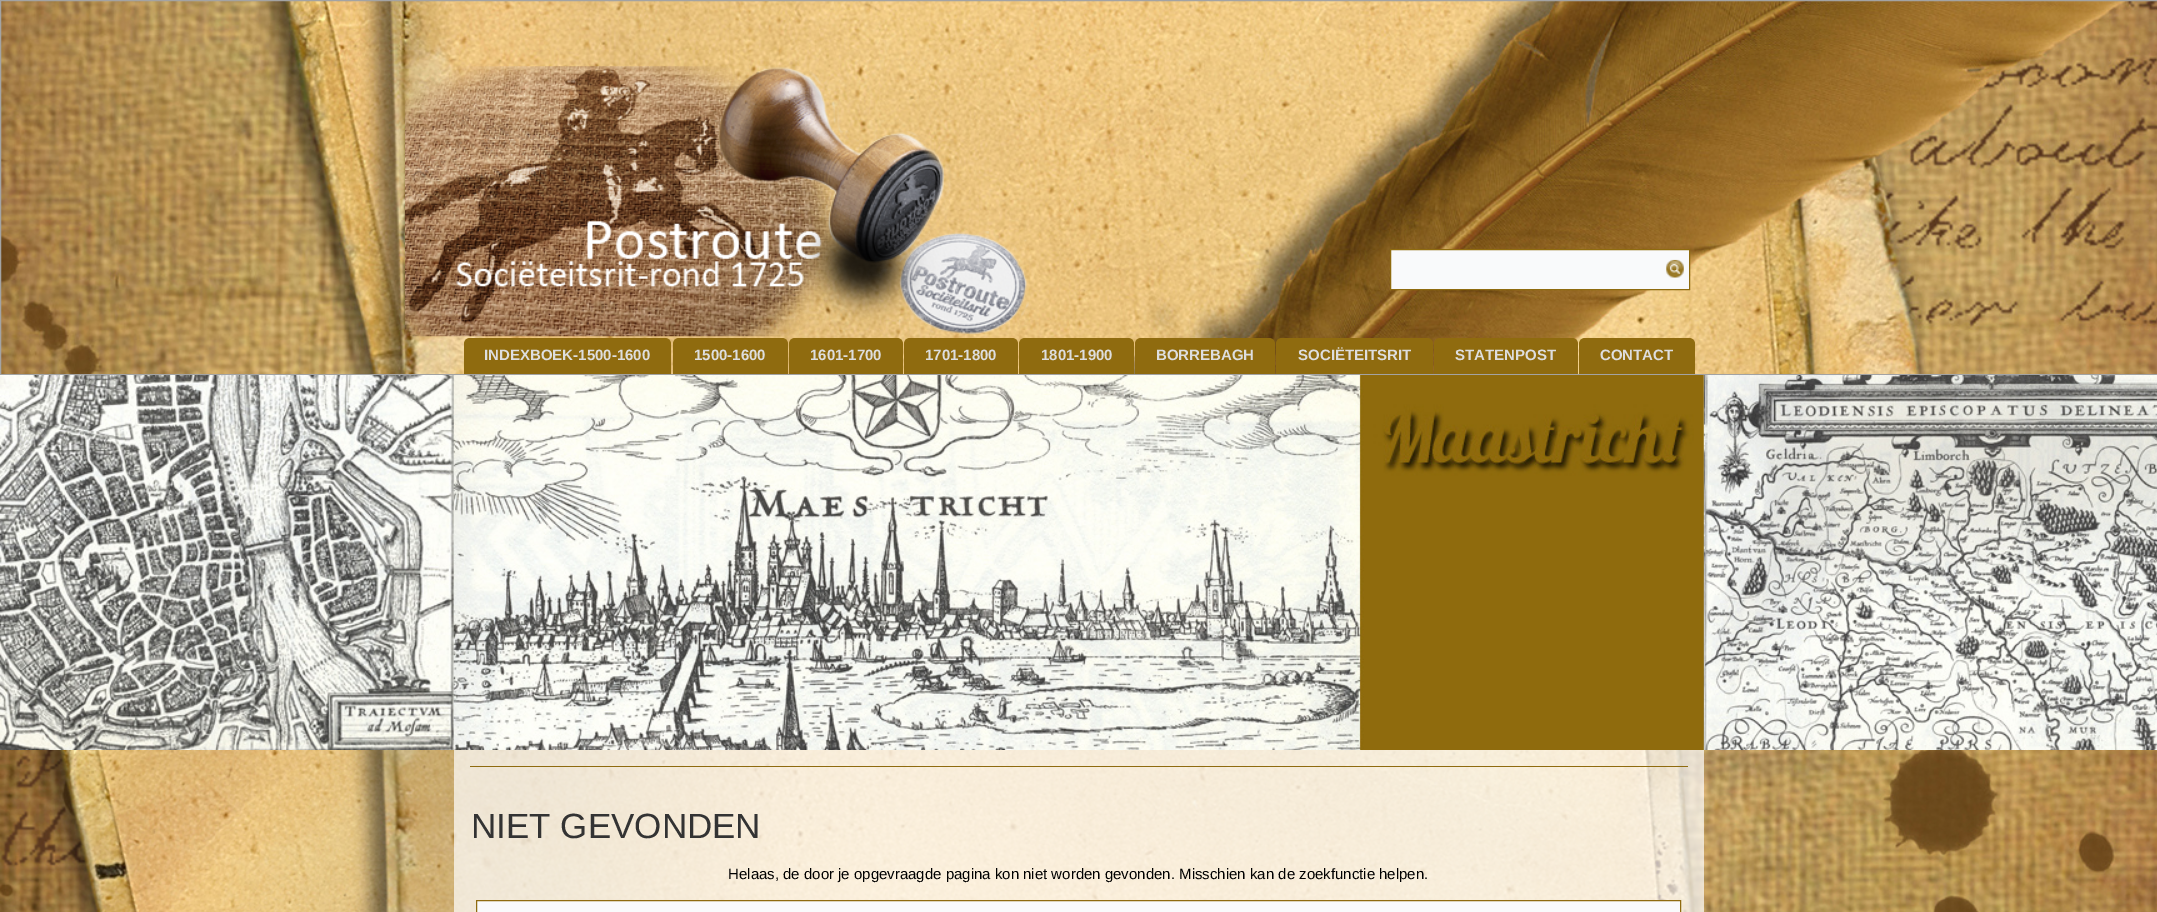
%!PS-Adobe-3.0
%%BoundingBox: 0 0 2157 912
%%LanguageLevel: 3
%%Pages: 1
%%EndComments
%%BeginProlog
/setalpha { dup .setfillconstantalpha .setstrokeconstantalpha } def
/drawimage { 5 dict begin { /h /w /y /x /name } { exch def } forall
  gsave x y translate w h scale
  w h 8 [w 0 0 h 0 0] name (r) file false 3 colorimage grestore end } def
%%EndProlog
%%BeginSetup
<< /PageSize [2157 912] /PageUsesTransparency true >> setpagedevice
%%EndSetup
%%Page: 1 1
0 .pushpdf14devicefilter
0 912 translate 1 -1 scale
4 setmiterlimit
1 setgray
0 0 2157 912 rectfill
(images/1.raw) 0 750 2157 162 drawimage
(images/2.raw) 1 1 2156 373 drawimage
0.639 setgray
0.5 0.5 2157 374 rectstroke
(images/3.raw) 405 66 624 271 drawimage
0.976 0.98 0.984 setrgbcolor
newpath 1390.5 249.5 moveto 1689.5 249.5 lineto 1689.5 289.5 lineto 1390.5 289.5 lineto closepath gsave fill grestore
0.561 0.42 0.059 setrgbcolor
stroke
(images/4.raw) 1666 259 18 19 drawimage
newpath 470 338 moveto 665 338 lineto 668.5 338 671 340.5 671 344 curveto 671 374 lineto 464 374 lineto 464 344 lineto 464 340.5 466.5 338 470 338 curveto closepath fill
newpath 679 338 moveto 782 338 lineto 785.5 338 788 340.5 788 344 curveto 788 374 lineto 673 374 lineto 673 344 lineto 673 340.5 675.5 338 679 338 curveto closepath fill
newpath 795 338 moveto 897 338 lineto 900.5 338 903 340.5 903 344 curveto 903 374 lineto 789 374 lineto 789 344 lineto 789 340.5 791.5 338 795 338 curveto closepath fill
newpath 910 338 moveto 1012 338 lineto 1015.5 338 1018 340.5 1018 344 curveto 1018 374 lineto 904 374 lineto 904 344 lineto 904 340.5 906.5 338 910 338 curveto closepath fill
newpath 1025 338 moveto 1128 338 lineto 1131.5 338 1134 340.5 1134 344 curveto 1134 374 lineto 1019 374 lineto 1019 344 lineto 1019 340.5 1021.5 338 1025 338 curveto closepath fill
newpath 1141 338 moveto 1269 338 lineto 1272.5 338 1275 340.5 1275 344 curveto 1275 374 lineto 1135 374 lineto 1135 344 lineto 1135 340.5 1137.5 338 1141 338 curveto closepath fill
newpath 1282 338 moveto 1427 338 lineto 1430.5 338 1433 340.5 1433 344 curveto 1433 374 lineto 1276 374 lineto 1276 344 lineto 1276 340.5 1278.5 338 1282 338 curveto closepath fill
newpath 1440 338 moveto 1572 338 lineto 1575.5 338 1578 340.5 1578 344 curveto 1578 374 lineto 1434 374 lineto 1434 344 lineto 1434 340.5 1436.5 338 1440 338 curveto closepath fill
newpath 1585 338 moveto 1689 338 lineto 1692.5 338 1695 340.5 1695 344 curveto 1695 374 lineto 1579 374 lineto 1579 344 lineto 1579 340.5 1581.5 338 1585 338 curveto closepath fill
(images/5.raw) 0 375 2157 375 drawimage
0.7 setalpha
1 setgray
454 750 1250 162 rectfill
1 setalpha
0.561 0.42 0.059 setrgbcolor
470 766 1218 1 rectfill
0.976 0.98 0.984 setrgbcolor
newpath 476.5 900.5 moveto 1680.5 900.5 lineto 1680.5 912.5 lineto 476.5 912.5 lineto closepath gsave fill grestore
0.561 0.42 0.059 setrgbcolor
stroke
/LiberationSans-Bold [15 0 0 -15 0 0] selectfont
0.871 setgray
484 360 moveto (INDEXBOEK-1500-1600) show
694 360 moveto (1500-1600) show
810 360 moveto (1601-1700) show
925 360 moveto (1701-1800) show
1041 360 moveto (1801-1900) show
1156 360 moveto (BORREBAGH) show
1298 360 moveto (SOCIËTEITSRIT) show
1455 360 moveto (STATENPOST) show
1600 360 moveto (CONTACT) show
/LiberationSans-Regular [35 0 0 -35 0 0] selectfont
0.2 setgray
471 838 moveto (NIET GEVONDEN) show
/LiberationSans-Regular [15 0 0 -15 0 0] selectfont
0 setgray
728 879 moveto (Helaas, de door je opgevraagde pagina kon niet worden gevonden. Misschien kan de zoekfunctie helpen.) show
.poppdf14devicefilter showpage
%%EOF
